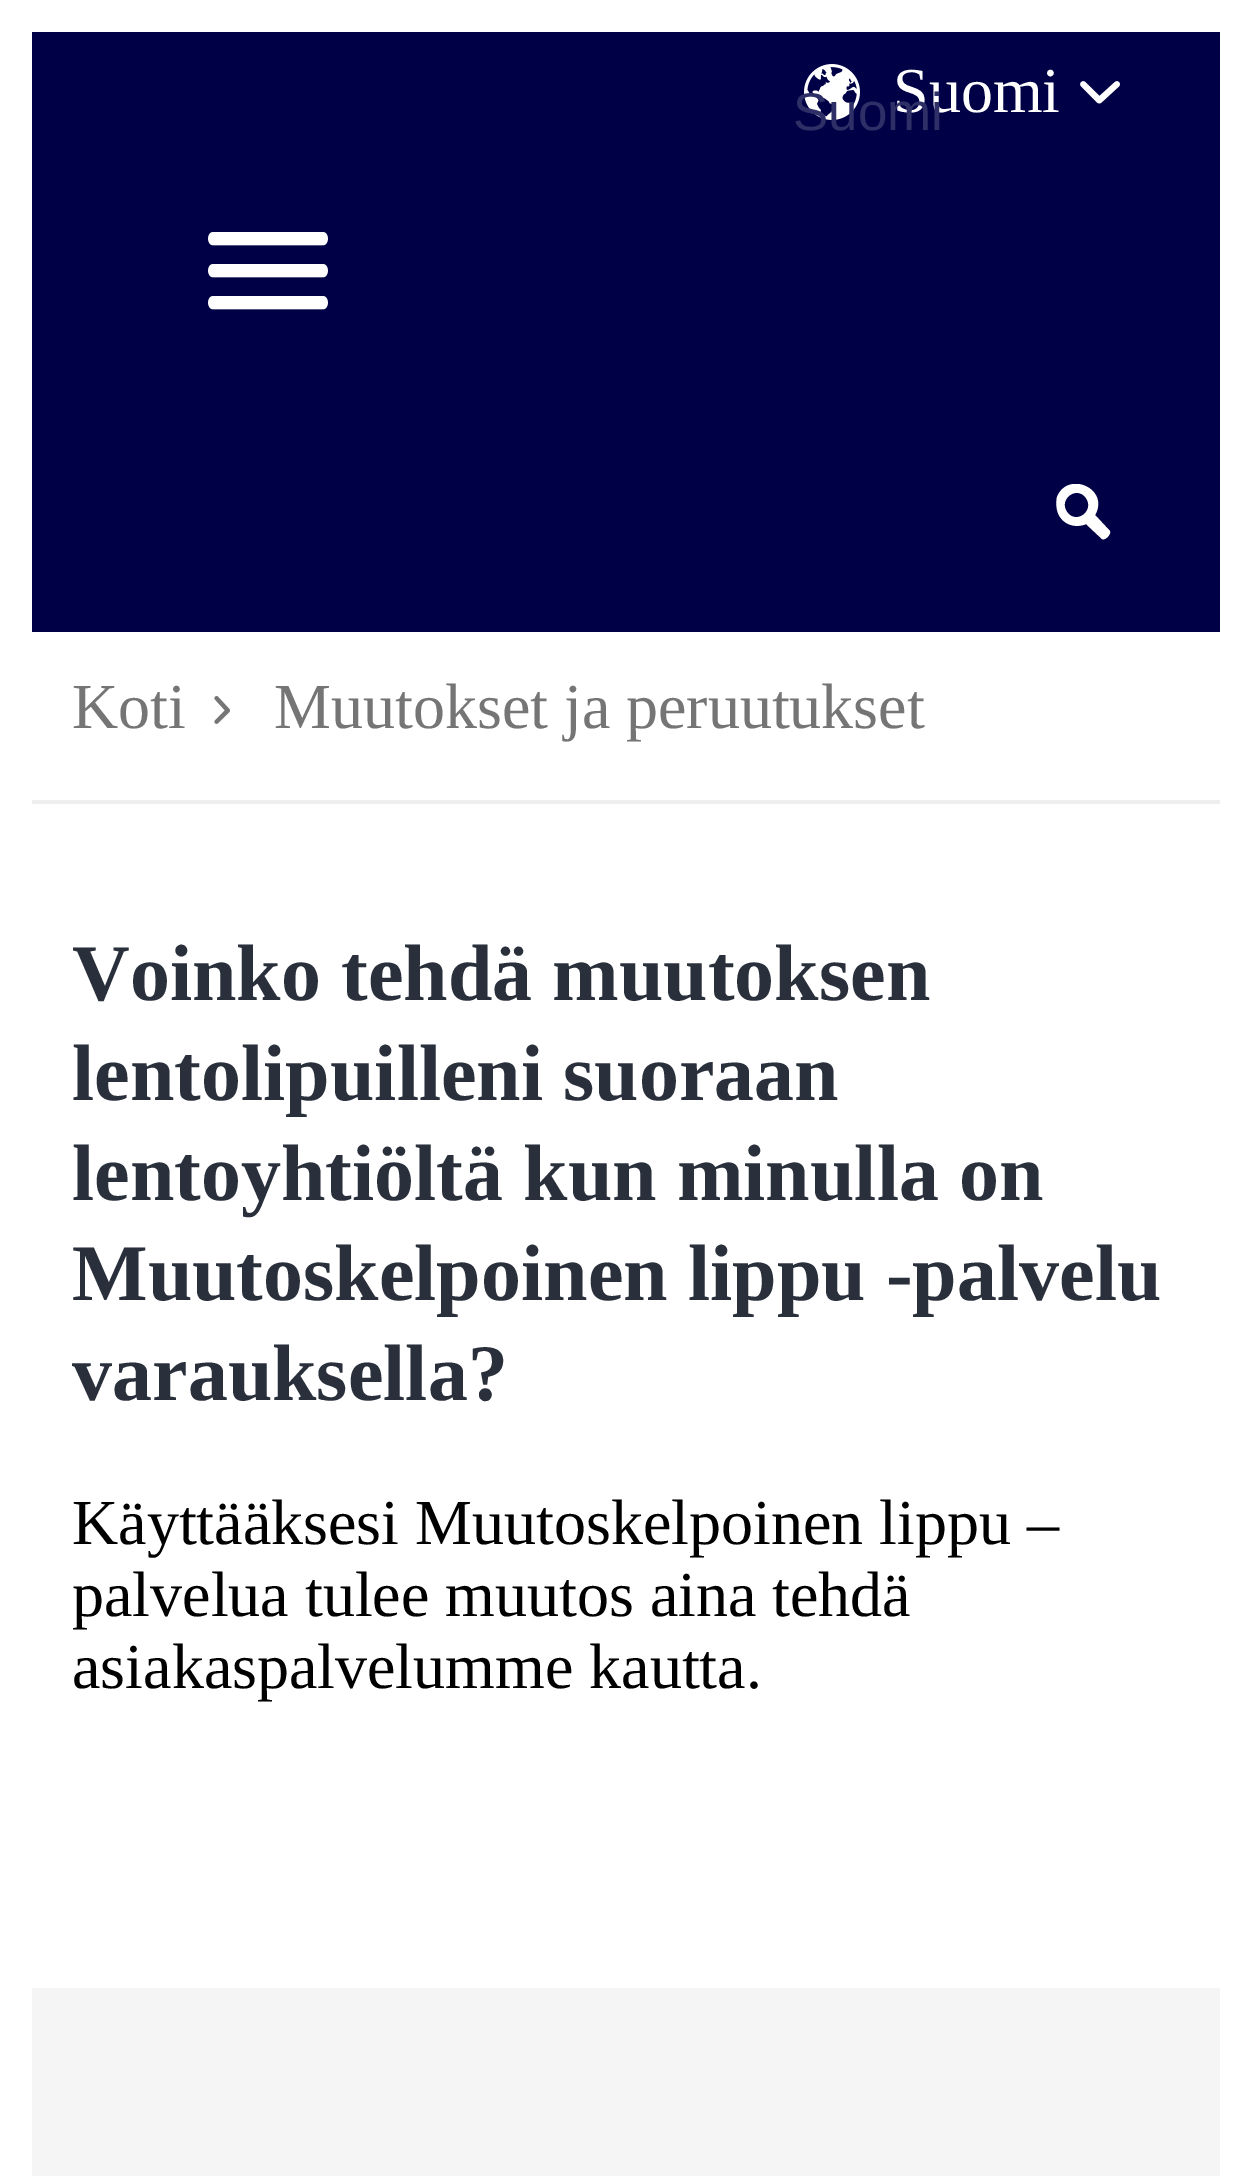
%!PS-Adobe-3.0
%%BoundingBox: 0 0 1249 2176
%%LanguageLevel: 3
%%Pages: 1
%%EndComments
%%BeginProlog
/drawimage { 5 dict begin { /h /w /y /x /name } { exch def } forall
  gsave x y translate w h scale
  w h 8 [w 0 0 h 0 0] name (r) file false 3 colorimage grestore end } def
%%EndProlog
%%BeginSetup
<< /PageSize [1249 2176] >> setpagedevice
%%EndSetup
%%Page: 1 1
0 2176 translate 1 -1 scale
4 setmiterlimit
1 setgray
0 0 1249 2176 rectfill
0 0 0.275 setrgbcolor
32 32 1188 600 rectfill
(images/1.raw) 804 64 56 56 drawimage
(images/2.raw) 1080 81 40 23 drawimage
(images/3.raw) 208 232 120 78 drawimage
gsave
1056 484 56 56 rectclip
1 setgray
newpath 1109 530 moveto 1095 515 lineto 1110 489 1068 470 1057 497 curveto 1056 502 1056 508 1058 513 curveto 1062 524 1075 529 1086 524 curveto 1102 539 lineto 1105 541 1113 533 1109 530 curveto 1067 512 moveto 1058 499 1077 485 1086 498 curveto 1095 511 1076 525 1067 512 curveto fill
grestore
0.933 setgray
32 800 1188 4 rectfill
(images/4.raw) 214 696 16 28 drawimage
0.961 setgray
32 1988 1188 188 rectfill
/LiberationSerif-Regular [64 0 0 -64 0 0] selectfont
1 setgray
893 112 moveto (Suomi) show
/LiberationSans-Regular [53 0 0 -53 0 0] selectfont
0.184 0.184 0.408 setrgbcolor
793 130 moveto (Suomi) show
/LiberationSerif-Regular [64 0 0 -64 0 0] selectfont
0.459 setgray
72 728 moveto (Koti) show
274 728 moveto (Muutokset ja peruutukset) show
/LiberationSerif-Bold [80 0 0 -80 0 0] selectfont
0.165 0.188 0.231 setrgbcolor
72 1000 moveto (Voinko tehdä muutoksen) show
72 1100 moveto (lentolipuilleni suoraan) show
72 1200 moveto (lentoyhtiöltä kun minulla on) show
72 1300 moveto (Muutoskelpoinen lippu -palvelu) show
72 1400 moveto (varauksella?) show
/LiberationSerif-Regular [64 0 0 -64 0 0] selectfont
0 setgray
72 1544 moveto (Käyttääksesi Muutoskelpoinen lippu –) show
72 1616 moveto (palvelua tulee muutos aina tehdä) show
72 1688 moveto (asiakaspalvelumme kautta.) show
showpage
%%EOF
